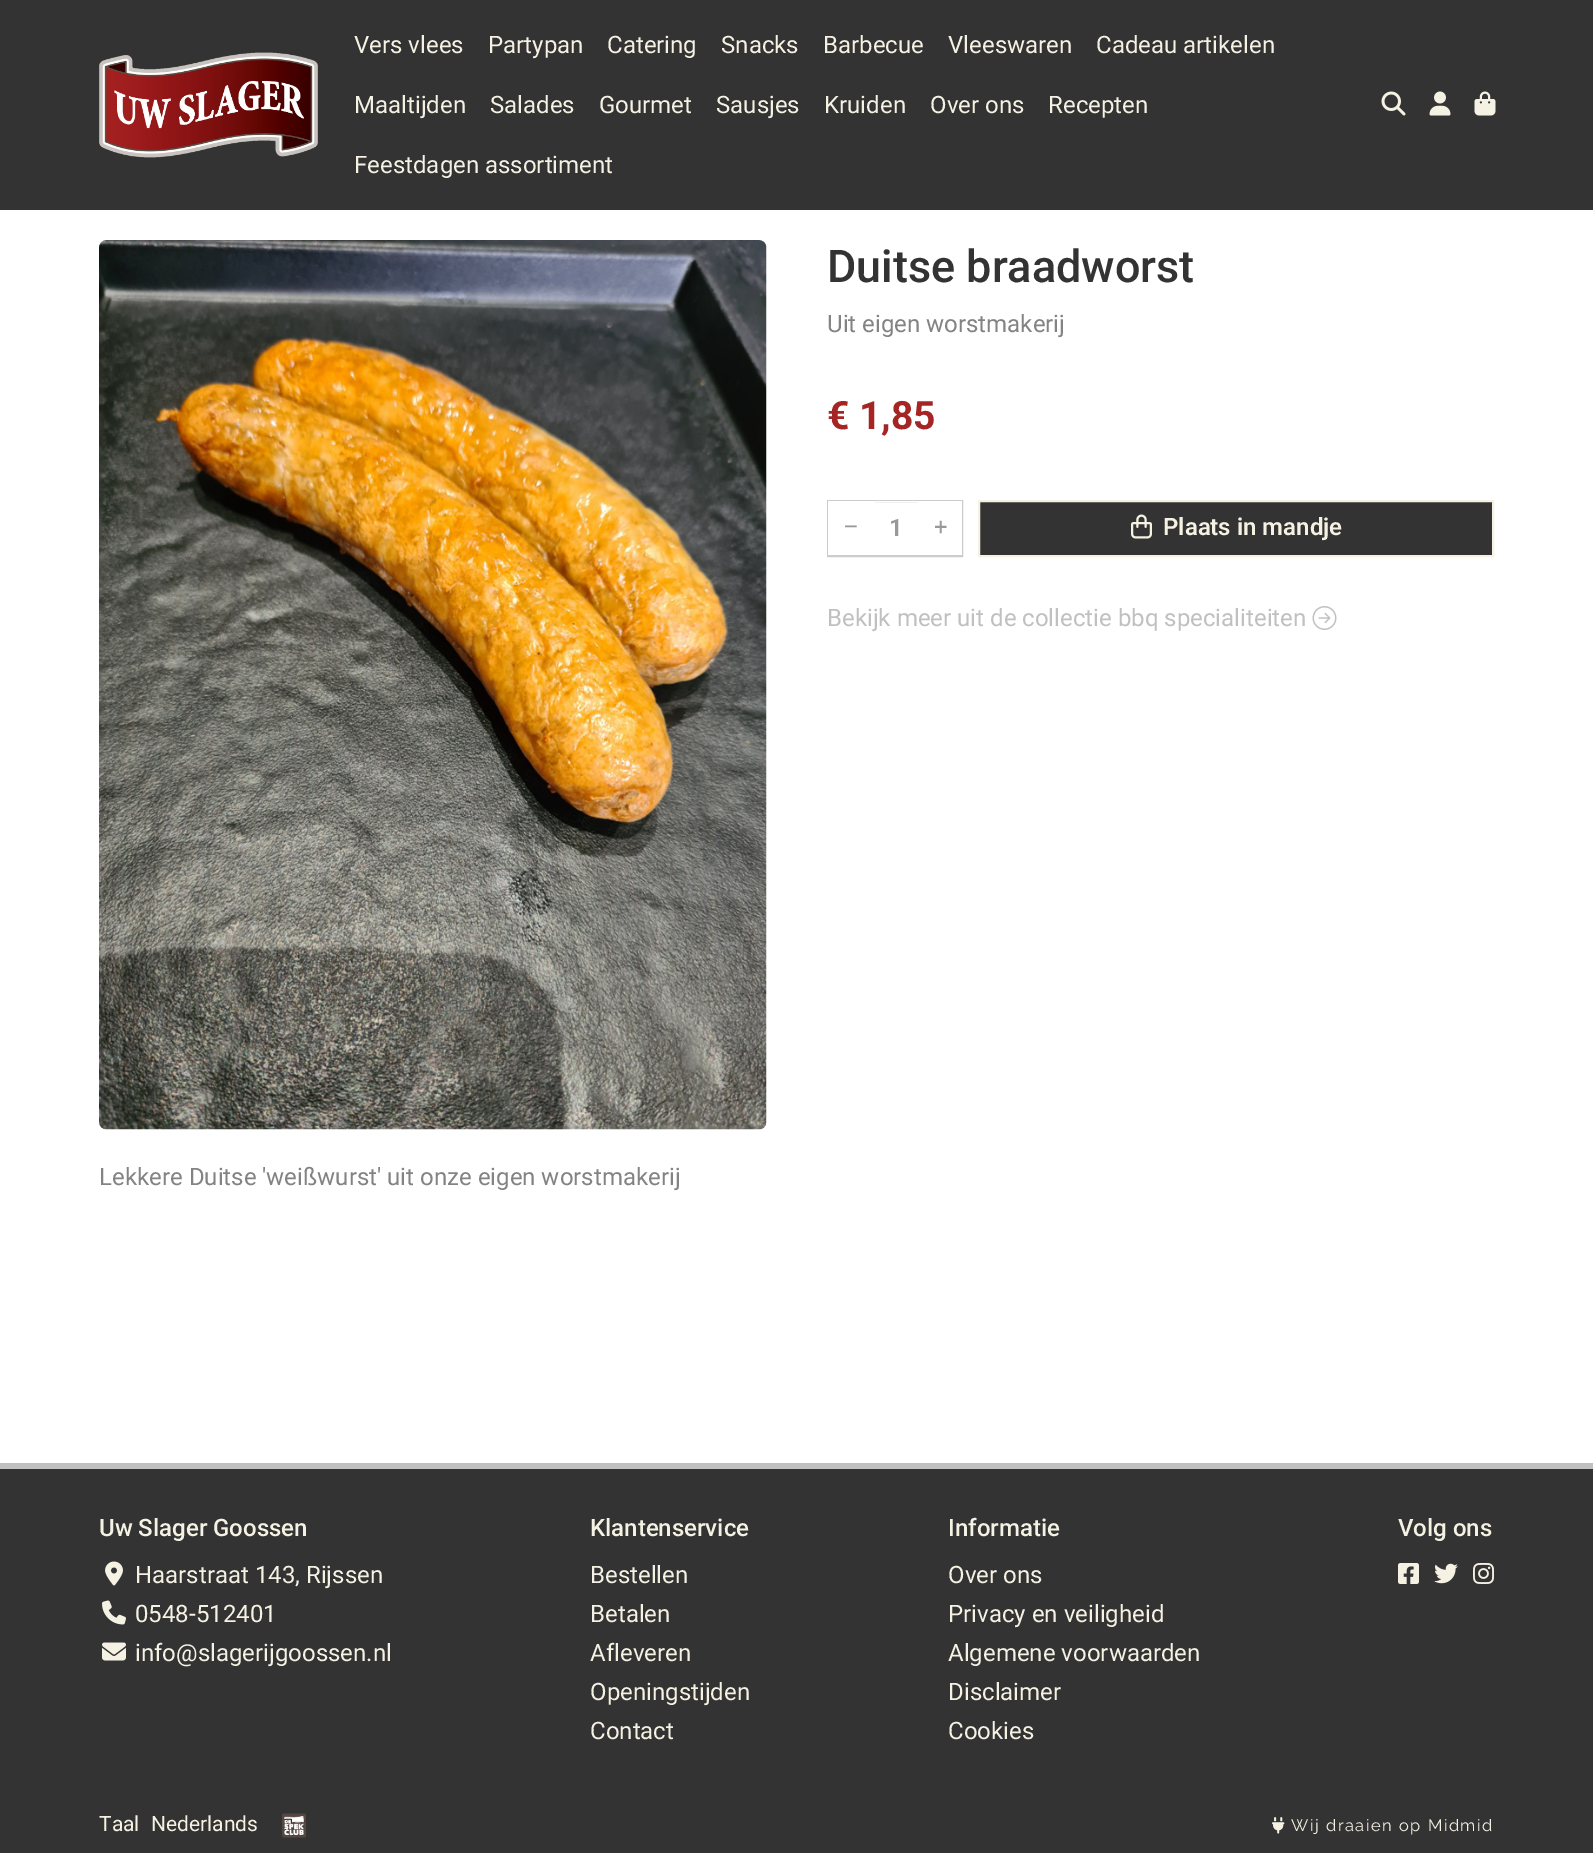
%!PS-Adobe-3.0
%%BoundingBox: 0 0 1593 1853
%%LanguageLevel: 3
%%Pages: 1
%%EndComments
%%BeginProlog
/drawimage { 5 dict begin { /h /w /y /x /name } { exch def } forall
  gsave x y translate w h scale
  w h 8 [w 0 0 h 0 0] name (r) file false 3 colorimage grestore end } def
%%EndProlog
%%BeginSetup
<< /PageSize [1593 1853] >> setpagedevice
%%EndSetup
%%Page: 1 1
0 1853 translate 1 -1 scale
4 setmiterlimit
1 setgray
0 0 1593 1853 rectfill
0.2 setgray
0 0 1593 210 rectfill
(images/1.raw) 99 52 219 106 drawimage
(images/2.raw) 1381 91 25 25 drawimage
(images/3.raw) 1429 91 22 25 drawimage
(images/4.raw) 1474 91 22 25 drawimage
0.8 setgray
2 setlinewidth
828 501 134 55 rectstroke
1 setgray
828 501 47 54 rectfill
875 501 43 1 rectfill
918 501 44 54 rectfill
0.2 setgray
newpath 979 501 moveto 1493 501 lineto 1493 556 lineto 979 556 lineto closepath gsave fill grestore
0.961 0.949 0.894 setrgbcolor
stroke
(images/5.raw) 1131 514 21 25 drawimage
(images/6.raw) 1312 606 25 24 drawimage
(images/7.raw) 99 240 668 890 drawimage
0.2 setgray
0 1469 1593 384 rectfill
0.753 setgray
0 1463 1593 6 rectfill
(images/8.raw) 105 1561 18 25 drawimage
(images/9.raw) 102 1600 24 25 drawimage
(images/10.raw) 102 1642 24 19 drawimage
(images/11.raw) 1398 1563 21 21 drawimage
(images/12.raw) 1434 1563 24 21 drawimage
(images/13.raw) 1473 1563 21 21 drawimage
(images/14.raw) 282 1813 24 25 drawimage
(images/15.raw) 1272 1817 13 17 drawimage
/Roboto-Regular [24 0 0 -24 0 0] selectfont
0.961 0.949 0.894 setrgbcolor
354 53 moveto (Vers vlees) show
488 53 moveto (Partypan) show
607 53 moveto (Catering) show
721 53 moveto (Snacks) show
823 53 moveto (Barbecue) show
948 53 moveto (Vleeswaren) show
1096 53 moveto (Cadeau artikelen) show
354 113 moveto (Maaltijden) show
490 113 moveto (Salades) show
599 113 moveto (Gourmet) show
716 113 moveto (Sausjes) show
824 113 moveto (Kruiden) show
930 113 moveto (Over ons) show
1048 113 moveto (Recepten) show
354 173 moveto (Feestdagen assortiment) show
/Roboto-Medium [45 0 0 -45 0 0] selectfont
0.2 setgray
827 282 moveto (Duitse braadworst) show
/Roboto-Regular [24 0 0 -24 0 0] selectfont
0.514 setgray
827 332 moveto (Uit eigen worstmakerij) show
/Roboto-Bold [39 0 0 -39 0 0] selectfont
0.643 0.145 0.137 setrgbcolor
827 429 moveto (€ 1,85) show
/Roboto-Regular [24 0 0 -24 0 0] selectfont
0.6 setgray
843 535 moveto (–) show
/Roboto-SemiBold [24 0 0 -24 0 0] selectfont
889 536 moveto (1) show
/Roboto-Regular [24 0 0 -24 0 0] selectfont
934 535 moveto (+) show
/Roboto-SemiBold [24 0 0 -24 0 0] selectfont
0.961 0.949 0.894 setrgbcolor
1163 535 moveto (Plaats in mandje) show
/Roboto-Regular [24 0 0 -24 0 0] selectfont
0.753 setgray
827 626 moveto (Bekijk meer uit de collectie bbq specialiteiten) show
0.514 setgray
99 1185 moveto (Lekkere Duitse 'weißwurst' uit onze eigen worstmakerij) show
/Roboto-Medium [24 0 0 -24 0 0] selectfont
0.961 0.949 0.894 setrgbcolor
99 1536 moveto (Uw Slager Goossen) show
/Roboto-Regular [24 0 0 -24 0 0] selectfont
135 1583 moveto (Haarstraat 143, Rijssen) show
135 1622 moveto (0548-512401) show
135 1661 moveto (info@slagerijgoossen.nl) show
/Roboto-Medium [24 0 0 -24 0 0] selectfont
590 1536 moveto (Klantenservice) show
/Roboto-Regular [24 0 0 -24 0 0] selectfont
590 1583 moveto (Bestellen) show
590 1622 moveto (Betalen) show
590 1661 moveto (Afleveren) show
590 1700 moveto (Openingstijden) show
590 1739 moveto (Contact) show
/Roboto-Medium [24 0 0 -24 0 0] selectfont
948 1536 moveto (Informatie) show
/Roboto-Regular [24 0 0 -24 0 0] selectfont
948 1583 moveto (Over ons) show
948 1622 moveto (Privacy en veiligheid) show
948 1661 moveto (Algemene voorwaarden) show
948 1700 moveto (Disclaimer) show
948 1739 moveto (Cookies) show
/Roboto-Medium [24 0 0 -24 0 0] selectfont
1398 1536 moveto (Volg ons) show
/Roboto-Regular [21 0 0 -21 0 0] selectfont
99 1831 moveto (Taal) show
151 1831 moveto (Nederlands) show
/Raleway-Regular [16.5 0 0 -16.5 0 0] selectfont
1291 1831 moveto 1.5 0 (Wij draaien op Midmid) ashow
showpage
%%EOF
